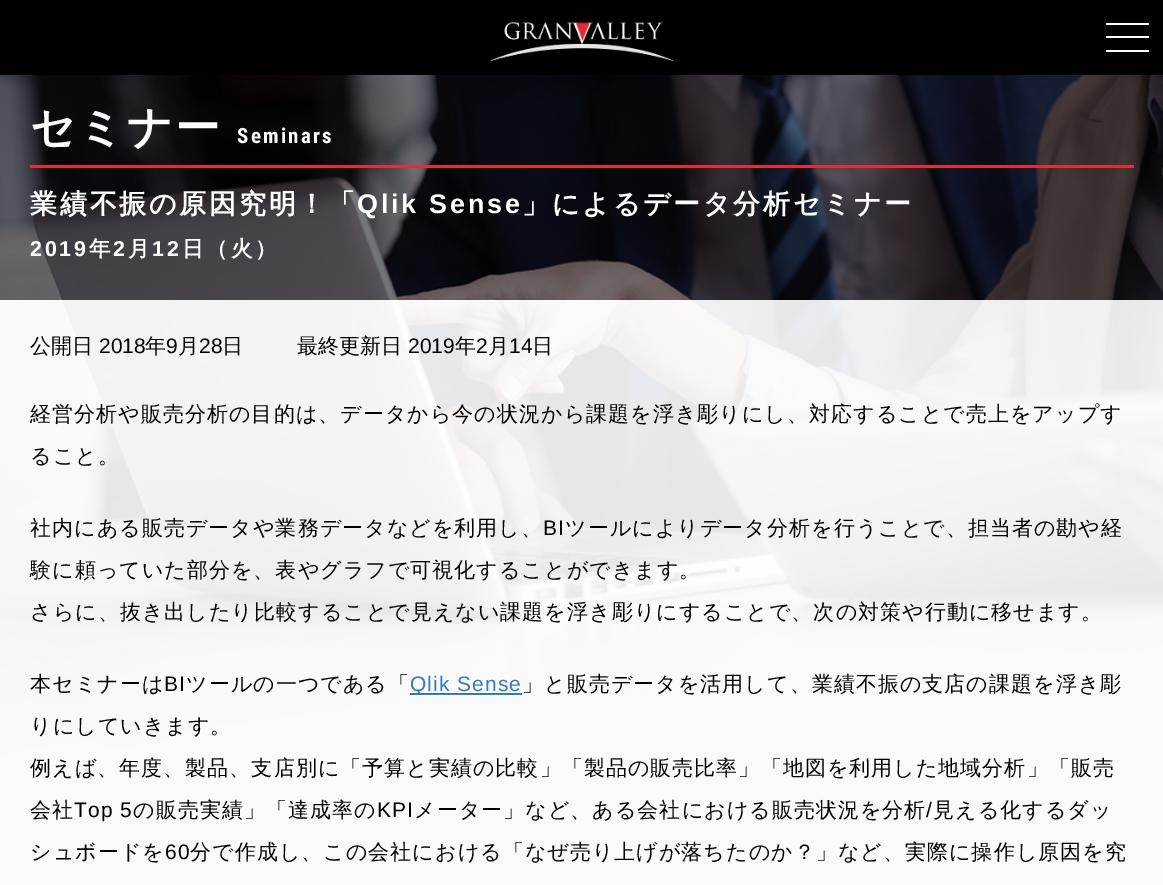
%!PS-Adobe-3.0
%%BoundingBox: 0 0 1163 885
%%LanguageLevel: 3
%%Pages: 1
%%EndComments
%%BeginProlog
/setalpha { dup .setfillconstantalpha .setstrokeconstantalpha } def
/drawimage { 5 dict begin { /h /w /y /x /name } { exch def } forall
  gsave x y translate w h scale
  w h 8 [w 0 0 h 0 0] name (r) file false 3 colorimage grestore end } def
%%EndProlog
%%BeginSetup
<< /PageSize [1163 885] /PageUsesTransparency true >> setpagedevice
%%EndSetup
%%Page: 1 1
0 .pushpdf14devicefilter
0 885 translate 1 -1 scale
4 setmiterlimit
1 setgray
0 0 1163 885 rectfill
(images/1.raw) 0 75 1163 810 drawimage
0 setgray
0 0 1163 75 rectfill
(images/2.raw) 489 22 186 40 drawimage
1 setgray
1106 23 43 2 rectfill
1106 36 43 2 rectfill
1106 50 43 2 rectfill
0.5 setalpha
0 setgray
0 75 1163 225 rectfill
1 setalpha
0.906 0.176 0.192 setrgbcolor
30 165 1104 3 rectfill
0.9 setalpha
1 setgray
0 300 1163 585 rectfill
1 setalpha
0.2 0.478 0.718 setrgbcolor
410 693 112 2 rectfill
/WenQuanYiZenHei-Bold [45 0 0 -45 0 0] selectfont
1 setgray
30 143 moveto 2.25 0 (セミナー) ashow
/RobotoCondensed-Bold [21 0 0 -21 0 0] selectfont
237 143 moveto 2.25 0 (Seminars) ashow
/WenQuanYiZenHei-Bold [27 0 0 -27 0 0] selectfont
30 213 moveto 2.75 0 (業績不振の原因究明！「) ashow
/LiberationSans-Bold [27 0 0 -27 0 0] selectfont
357 213 moveto 2.75 0 (Qlik Sense) ashow
/WenQuanYiZenHei-Bold [27 0 0 -27 0 0] selectfont
522 213 moveto 2.75 0 (」によるデータ分析セミナー) ashow
/LiberationSans-Bold [21.5 0 0 -21.5 0 0] selectfont
30 256 moveto 2.75 0 (2019) ashow
/WenQuanYiZenHei-Bold [21.5 0 0 -21.5 0 0] selectfont
89 256 moveto 2.75 0 (年) ashow
/LiberationSans-Bold [21.5 0 0 -21.5 0 0] selectfont
113 256 moveto 2.75 0 (2) ashow
/WenQuanYiZenHei-Bold [21.5 0 0 -21.5 0 0] selectfont
128 256 moveto 2.75 0 (月) ashow
/LiberationSans-Bold [21.5 0 0 -21.5 0 0] selectfont
152 256 moveto 2.75 0 (12) ashow
/WenQuanYiZenHei-Bold [21.5 0 0 -21.5 0 0] selectfont
182 256 moveto 2.75 0 (日（火）) ashow
/WenQuanYiZenHei-Medium [21 0 0 -21 0 0] selectfont
0 setgray
30 353 moveto (公開日) show
/LiberationSans-Regular [21 0 0 -21 0 0] selectfont
99 353 moveto (2018) show
/WenQuanYiZenHei-Medium [21 0 0 -21 0 0] selectfont
145 353 moveto (年) show
/LiberationSans-Regular [21 0 0 -21 0 0] selectfont
166 353 moveto (9) show
/WenQuanYiZenHei-Medium [21 0 0 -21 0 0] selectfont
178 353 moveto (月) show
/LiberationSans-Regular [21 0 0 -21 0 0] selectfont
199 353 moveto (28) show
/WenQuanYiZenHei-Medium [21 0 0 -21 0 0] selectfont
222 353 moveto (日) show
297 353 moveto (最終更新日) show
/LiberationSans-Regular [21 0 0 -21 0 0] selectfont
408 353 moveto (2019) show
/WenQuanYiZenHei-Medium [21 0 0 -21 0 0] selectfont
455 353 moveto (年) show
/LiberationSans-Regular [21 0 0 -21 0 0] selectfont
476 353 moveto (2) show
/WenQuanYiZenHei-Medium [21 0 0 -21 0 0] selectfont
488 353 moveto (月) show
/LiberationSans-Regular [21 0 0 -21 0 0] selectfont
509 353 moveto (14) show
/WenQuanYiZenHei-Medium [21 0 0 -21 0 0] selectfont
532 353 moveto (日) show
30 421 moveto 1.05 0 (経営分析や販売分析の目的は、データから今の状況から課題を浮き彫りにし、対応することで売上をアップす) ashow
30 463 moveto 1.05 0 (ること。) ashow
30 535 moveto 1.05 0 (社内にある販売データや業務データなどを利用し、) ashow
/LiberationSans-Regular [21 0 0 -21 0 0] selectfont
543 535 moveto 1.05 0 (BI) ashow
/WenQuanYiZenHei-Medium [21 0 0 -21 0 0] selectfont
565 535 moveto 1.05 0 (ツールによりデータ分析を行うことで、担当者の勘や経) ashow
30 577 moveto 1.05 0 (験に頼っていた部分を、表やグラフで可視化することができます。) ashow
30 619 moveto 1.05 0 (さらに、抜き出したり比較することで見えない課題を浮き彫りにすることで、次の対策や行動に移せます。) ashow
30 691 moveto 1.05 0 (本セミナーは) ashow
/LiberationSans-Regular [21 0 0 -21 0 0] selectfont
164 691 moveto 1.05 0 (BI) ashow
/WenQuanYiZenHei-Medium [21 0 0 -21 0 0] selectfont
186 691 moveto 1.05 0 (ツールの一つである「) ashow
/LiberationSans-Regular [21 0 0 -21 0 0] selectfont
0.2 0.478 0.718 setrgbcolor
410 691 moveto 1.05 0 (Qlik Sense) ashow
/WenQuanYiZenHei-Medium [21 0 0 -21 0 0] selectfont
0 setgray
522 691 moveto 1.05 0 (」と販売データを活用して、業績不振の支店の課題を浮き彫) ashow
30 733 moveto 1.05 0 (りにしていきます。) ashow
30 775 moveto 1.05 0 (例えば、年度、製品、支店別に「予算と実績の比較」「製品の販売比率」「地図を利用した地域分析」「販売) ashow
30 817 moveto 1.05 0 (会社) ashow
/LiberationSans-Regular [21 0 0 -21 0 0] selectfont
74 817 moveto 1.05 0 (Top 5) ashow
/WenQuanYiZenHei-Medium [21 0 0 -21 0 0] selectfont
133 817 moveto 1.05 0 (の販売実績」「達成率の) ashow
/LiberationSans-Regular [21 0 0 -21 0 0] selectfont
377 817 moveto 1.05 0 (KPI) ashow
/WenQuanYiZenHei-Medium [21 0 0 -21 0 0] selectfont
414 817 moveto 1.05 0 (メーター」など、ある会社における販売状況を分析) ashow
/LiberationSans-Regular [21 0 0 -21 0 0] selectfont
926 817 moveto 1.05 0 (/) ashow
/WenQuanYiZenHei-Medium [21 0 0 -21 0 0] selectfont
933 817 moveto 1.05 0 (見える化するダッ) ashow
30 859 moveto 1.05 0 (シュボードを) ashow
/LiberationSans-Regular [21 0 0 -21 0 0] selectfont
165 859 moveto 1.05 0 (60) ashow
/WenQuanYiZenHei-Medium [21 0 0 -21 0 0] selectfont
190 859 moveto 1.05 0 (分で作成し、この会社における「なぜ売り上げが落ちたのか？」など、実際に操作し原因を究) ashow
.poppdf14devicefilter showpage
%%EOF
